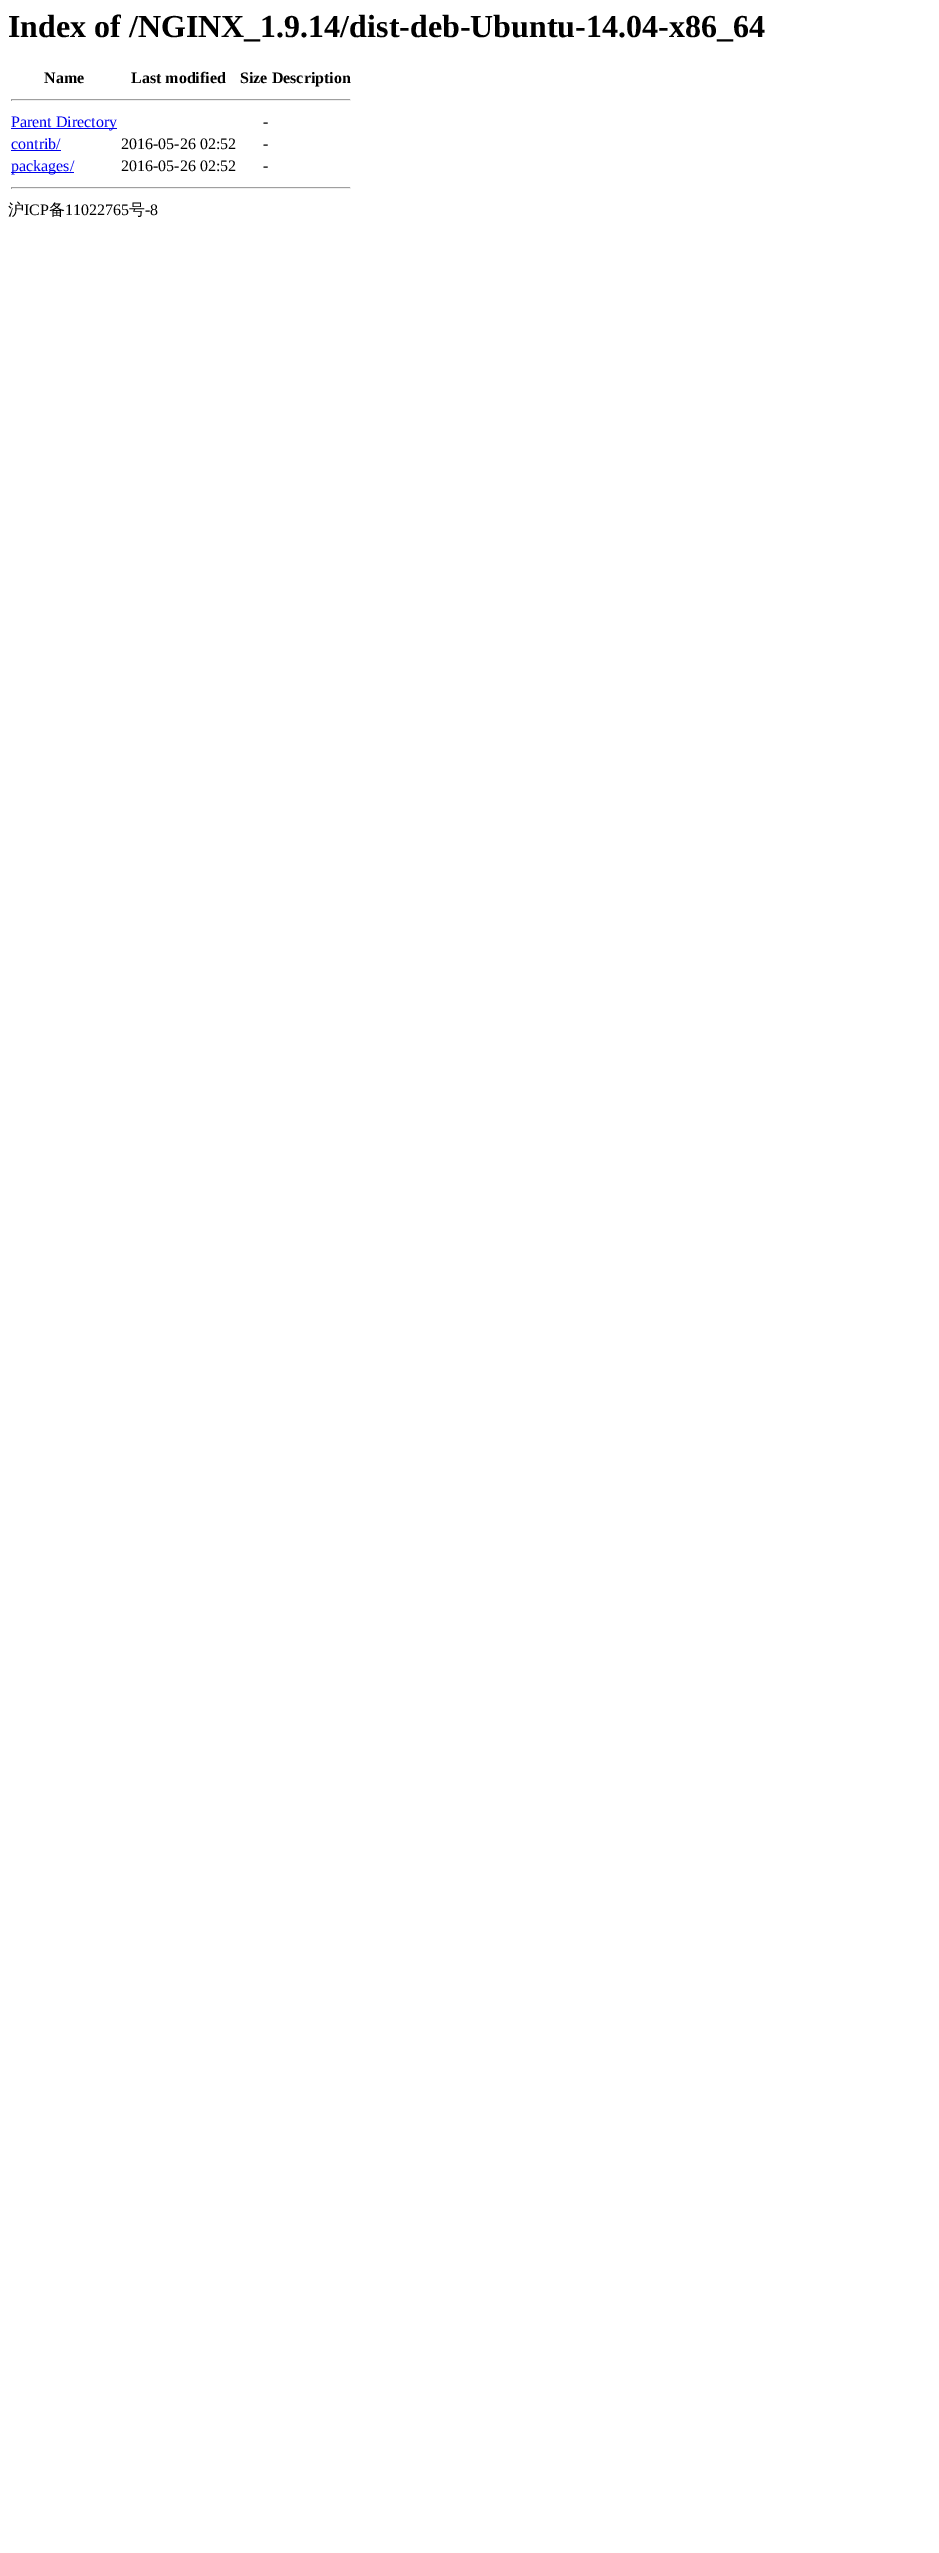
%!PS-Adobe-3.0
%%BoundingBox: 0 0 939 2553
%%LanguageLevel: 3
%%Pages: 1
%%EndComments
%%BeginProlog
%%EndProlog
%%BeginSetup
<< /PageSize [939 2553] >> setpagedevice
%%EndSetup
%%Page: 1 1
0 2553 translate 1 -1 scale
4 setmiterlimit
1 setgray
0 0 939 2553 rectfill
0.624 setgray
11 99 340 1 rectfill
0.933 setgray
350 99 1 2 rectfill
11 100 340 1 rectfill
0.624 setgray
11 99 1 2 rectfill
0 0 0.933 setrgbcolor
11 128 106 1 rectfill
11 150 50 1 rectfill
11 172 63 1 rectfill
0.624 setgray
11 187 340 1 rectfill
0.933 setgray
350 187 1 2 rectfill
11 188 340 1 rectfill
0.624 setgray
11 187 1 2 rectfill
/LiberationSerif-Bold [32 0 0 -32 0 0] selectfont
0 setgray
8 37 moveto (Index of /NGINX_1.9.14/dist-deb-Ubuntu-14.04-x86_64) show
/LiberationSerif-Bold [16 0 0 -16 0 0] selectfont
44 83 moveto (Name) show
131 83 moveto (Last modified) show
240 83 moveto (Size Description) show
/LiberationSerif-Regular [16 0 0 -16 0 0] selectfont
0 0 0.933 setrgbcolor
11 127 moveto (Parent Directory) show
0 setgray
263 127 moveto (-) show
0 0 0.933 setrgbcolor
11 149 moveto (contrib/) show
0 setgray
121 149 moveto (2016-05-26 02:52) show
263 149 moveto (-) show
0 0 0.933 setrgbcolor
11 171 moveto (packages/) show
0 setgray
121 171 moveto (2016-05-26 02:52) show
263 171 moveto (-) show
/WenQuanYiZenHei-Medium [16 0 0 -16 0 0] selectfont
8 215 moveto (沪) show
/LiberationSerif-Regular [16 0 0 -16 0 0] selectfont
24 215 moveto (ICP) show
/WenQuanYiZenHei-Medium [16 0 0 -16 0 0] selectfont
49 215 moveto (备) show
/LiberationSerif-Regular [16 0 0 -16 0 0] selectfont
65 215 moveto (11022765) show
/WenQuanYiZenHei-Medium [16 0 0 -16 0 0] selectfont
129 215 moveto (号) show
/LiberationSerif-Regular [16 0 0 -16 0 0] selectfont
145 215 moveto (-8) show
showpage
%%EOF
